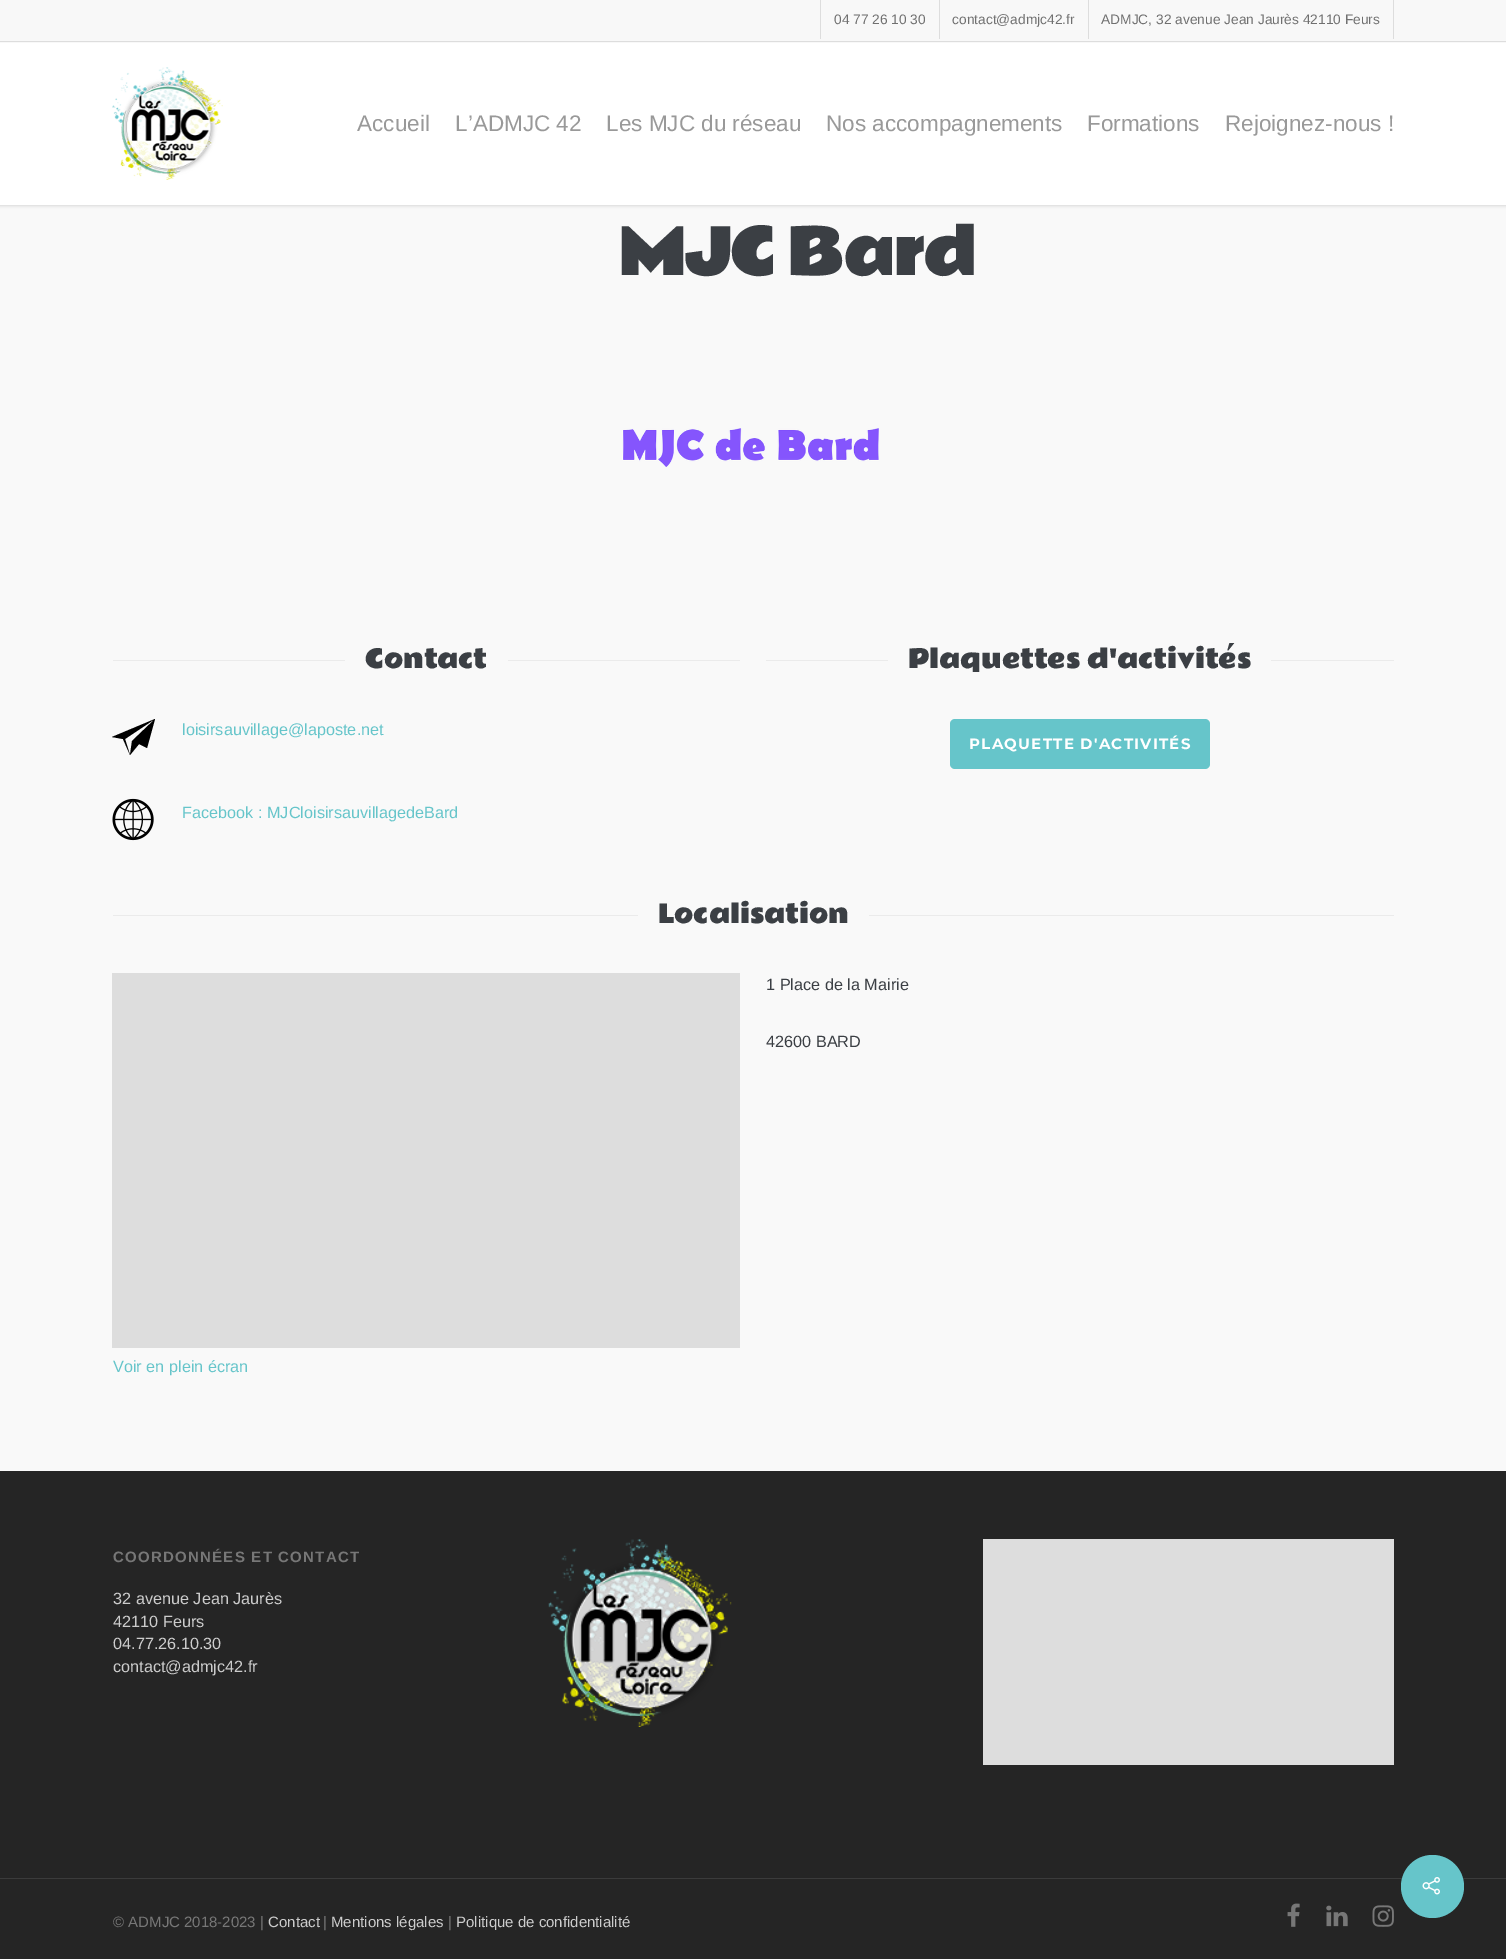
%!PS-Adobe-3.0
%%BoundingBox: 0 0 1506 1959
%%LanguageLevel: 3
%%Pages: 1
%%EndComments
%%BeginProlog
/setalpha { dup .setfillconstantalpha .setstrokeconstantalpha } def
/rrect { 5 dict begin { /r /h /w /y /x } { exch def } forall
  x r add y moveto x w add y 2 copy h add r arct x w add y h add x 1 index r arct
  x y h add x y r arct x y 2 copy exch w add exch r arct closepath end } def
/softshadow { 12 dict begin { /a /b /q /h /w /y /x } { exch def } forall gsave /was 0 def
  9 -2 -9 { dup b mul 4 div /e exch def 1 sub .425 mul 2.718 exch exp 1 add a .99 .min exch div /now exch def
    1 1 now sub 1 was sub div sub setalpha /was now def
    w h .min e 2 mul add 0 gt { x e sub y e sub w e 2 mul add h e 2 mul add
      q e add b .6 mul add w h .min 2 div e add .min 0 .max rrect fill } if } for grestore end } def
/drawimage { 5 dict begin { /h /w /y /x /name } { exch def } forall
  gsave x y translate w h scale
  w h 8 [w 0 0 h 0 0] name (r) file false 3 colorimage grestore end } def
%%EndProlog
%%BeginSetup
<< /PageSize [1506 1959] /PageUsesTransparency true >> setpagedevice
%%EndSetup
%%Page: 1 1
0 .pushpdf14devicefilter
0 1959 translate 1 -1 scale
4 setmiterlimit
0.976 setgray
0 0 1506 1959 rectfill
0 setgray
0 0 1506 205 0 2 0.22 softshadow
1 setgray
0 43 1506 162 rectfill
0.973 setgray
0 0 1506 43 rectfill
0.867 setgray
0 41 1506 1 rectfill
820 0 1 39 rectfill
939 0 1 39 rectfill
1393 0 1 39 rectfill
1088 0 1 39 rectfill
(images/1.raw) 112 67 111 113 drawimage
(images/2.raw) 622 428 257 39 drawimage
0.922 setgray
113 660 232 1 rectfill
508 660 232 1 rectfill
766 660 122 1 rectfill
1271 660 123 1 rectfill
0 setgray
newpath 132 741 moveto 130 755 lineto 139 744 lineto 147 748 lineto 155 719 lineto closepath 155 719 moveto 112 737 lineto 123 739 lineto 130 755 lineto 125 739 lineto closepath fill
(images/3.raw) 112 798 42 43 drawimage
0.4 0.773 0.792 setrgbcolor
950 719 260 50 5 rrect fill
0.922 setgray
113 915 525 1 rectfill
869 915 525 1 rectfill
0.867 setgray
112 973 628 375 rectfill
0.145 setgray
0 1471 1506 488 rectfill
(images/4.raw) 548 1539 184 188 drawimage
0.867 setgray
983 1539 411 226 rectfill
0.231 setgray
0 1878 1506 1 rectfill
(images/5.raw) 1287 1903 13 24 drawimage
(images/6.raw) 1326 1905 22 22 drawimage
(images/7.raw) 1372 1905 22 22 drawimage
0.4 0.773 0.792 setrgbcolor
newpath 1432.5 1886.5 31.5 0 360 arc closepath fill
(images/8.raw) 1422 1877 18 18 drawimage
/LiberationSans-Regular [13.75 0 0 -13.75 0 0] selectfont
0.439 setgray
834 24 moveto (04 77 26 10 30) show
952 24 moveto (contact@admjc42.fr) show
1101 24 moveto (ADMJC, 32 avenue Jean Jaurès 42110 Feurs) show
/LiberationSans-Regular [22.5 0 0 -22.5 0 0] selectfont
0.6 setgray
357 131 moveto (Accueil) show
455 131 moveto (L’ADMJC 42) show
606 131 moveto (Les MJC du réseau) show
826 131 moveto (Nos accompagnements) show
1087 131 moveto (Formations) show
1225 131 moveto (Rejoignez-nous !) show
/RammettoOne-Regular [62.5 0 0 -62.5 0 0] selectfont
0.231 0.247 0.267 setrgbcolor
618 275 moveto -2.5 0 (MJC Bard) ashow
/RammettoOne-Regular [25 0 0 -25 0 0] selectfont
365 668 moveto (Contact) show
908 668 moveto (Plaquettes d'activités) show
/LiberationSans-Regular [16.25 0 0 -16.25 0 0] selectfont
0.4 0.773 0.792 setrgbcolor
182 735 moveto (loisirsauvillage@laposte.net) show
182 818 moveto (Facebook : MJCloisirsauvillagedeBard) show
/Montserrat-Bold [15 0 0 -15 0 0] selectfont
1 setgray
969 749 moveto 1.25 0 (PLAQUETTE D'ACTIVITÉS) ashow
/RammettoOne-Regular [25 0 0 -25 0 0] selectfont
0.231 0.247 0.267 setrgbcolor
658 923 moveto (Localisation) show
/LiberationSans-Regular [16.25 0 0 -16.25 0 0] selectfont
766 990 moveto (1 Place de la Mairie) show
766 1047 moveto (42600 BARD) show
0.4 0.773 0.792 setrgbcolor
113 1372 moveto (Voir en plein écran) show
/LiberationSans-Bold [15 0 0 -15 0 0] selectfont
0.467 setgray
113 1562 moveto 1.25 0 (COORDONNÉES ET CONTACT) ashow
/LiberationSans-Regular [16.25 0 0 -16.25 0 0] selectfont
0.8 setgray
113 1604 moveto (32 avenue Jean Jaurès) show
113 1627 moveto (42110 Feurs) show
113 1649 moveto (04.77.26.10.30) show
113 1672 moveto (contact@admjc42.fr) show
/LiberationSans-Regular [15 0 0 -15 0 0] selectfont
0.467 setgray
113 1927 moveto (© ADMJC 2018-2023 |) show
0.8 setgray
268 1927 moveto (Contact) show
0.467 setgray
323 1927 moveto (|) show
0.8 setgray
331 1927 moveto (Mentions légales) show
0.467 setgray
448 1927 moveto (|) show
0.8 setgray
456 1927 moveto (Politique de confidentialité) show
.poppdf14devicefilter showpage
%%EOF
